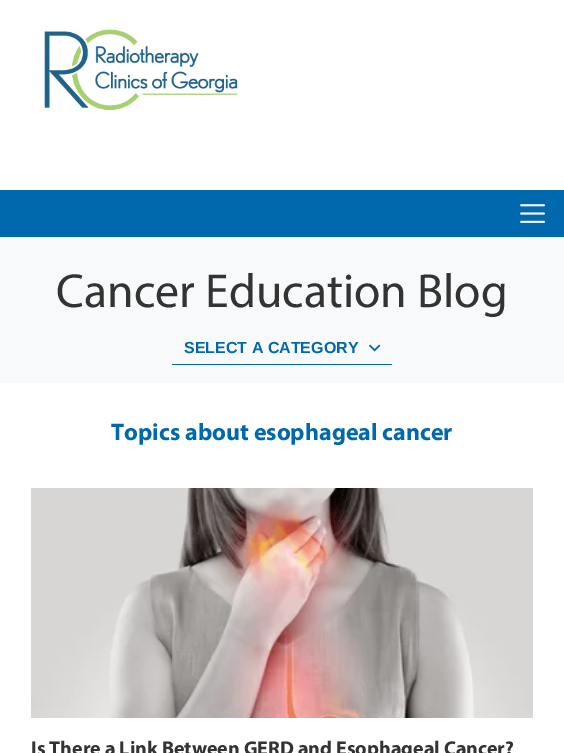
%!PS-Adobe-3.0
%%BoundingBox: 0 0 564 753
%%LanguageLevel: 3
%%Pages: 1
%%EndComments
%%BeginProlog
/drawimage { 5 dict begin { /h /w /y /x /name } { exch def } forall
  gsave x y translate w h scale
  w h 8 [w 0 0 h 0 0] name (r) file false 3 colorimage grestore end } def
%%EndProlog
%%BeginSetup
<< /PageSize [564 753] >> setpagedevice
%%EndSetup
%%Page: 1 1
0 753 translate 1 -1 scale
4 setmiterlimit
1 setgray
0 0 564 753 rectfill
(images/1.raw) 44 29 194 82 drawimage
0 0.408 0.675 setrgbcolor
0 190 564 47 rectfill
(images/2.raw) 520 204 25 19 drawimage
0.973 0.976 0.98 setrgbcolor
0 237 564 146 rectfill
0 0.408 0.675 setrgbcolor
172 364 220 1 rectfill
(images/3.raw) 369 344 12 8 drawimage
(images/4.raw) 31 488 502 230 drawimage
/Myriad-Regular [48 0 0 -48 0 0] selectfont
0.2 setgray
56 307 moveto (Cancer Education Blog) show
/LiberationSans-Bold [16 0 0 -16 0 0] selectfont
0 0.408 0.675 setrgbcolor
184 353 moveto (SELECT A CATEGORY) show
/Myriad-Bold [24 0 0 -24 0 0] selectfont
111 440 moveto (Topics about esophageal cancer) show
/Myriad-Bold [20 0 0 -20 0 0] selectfont
0.2 setgray
31 755 moveto (Is There a Link Between GERD and Esophageal Cancer?) show
showpage
%%EOF
